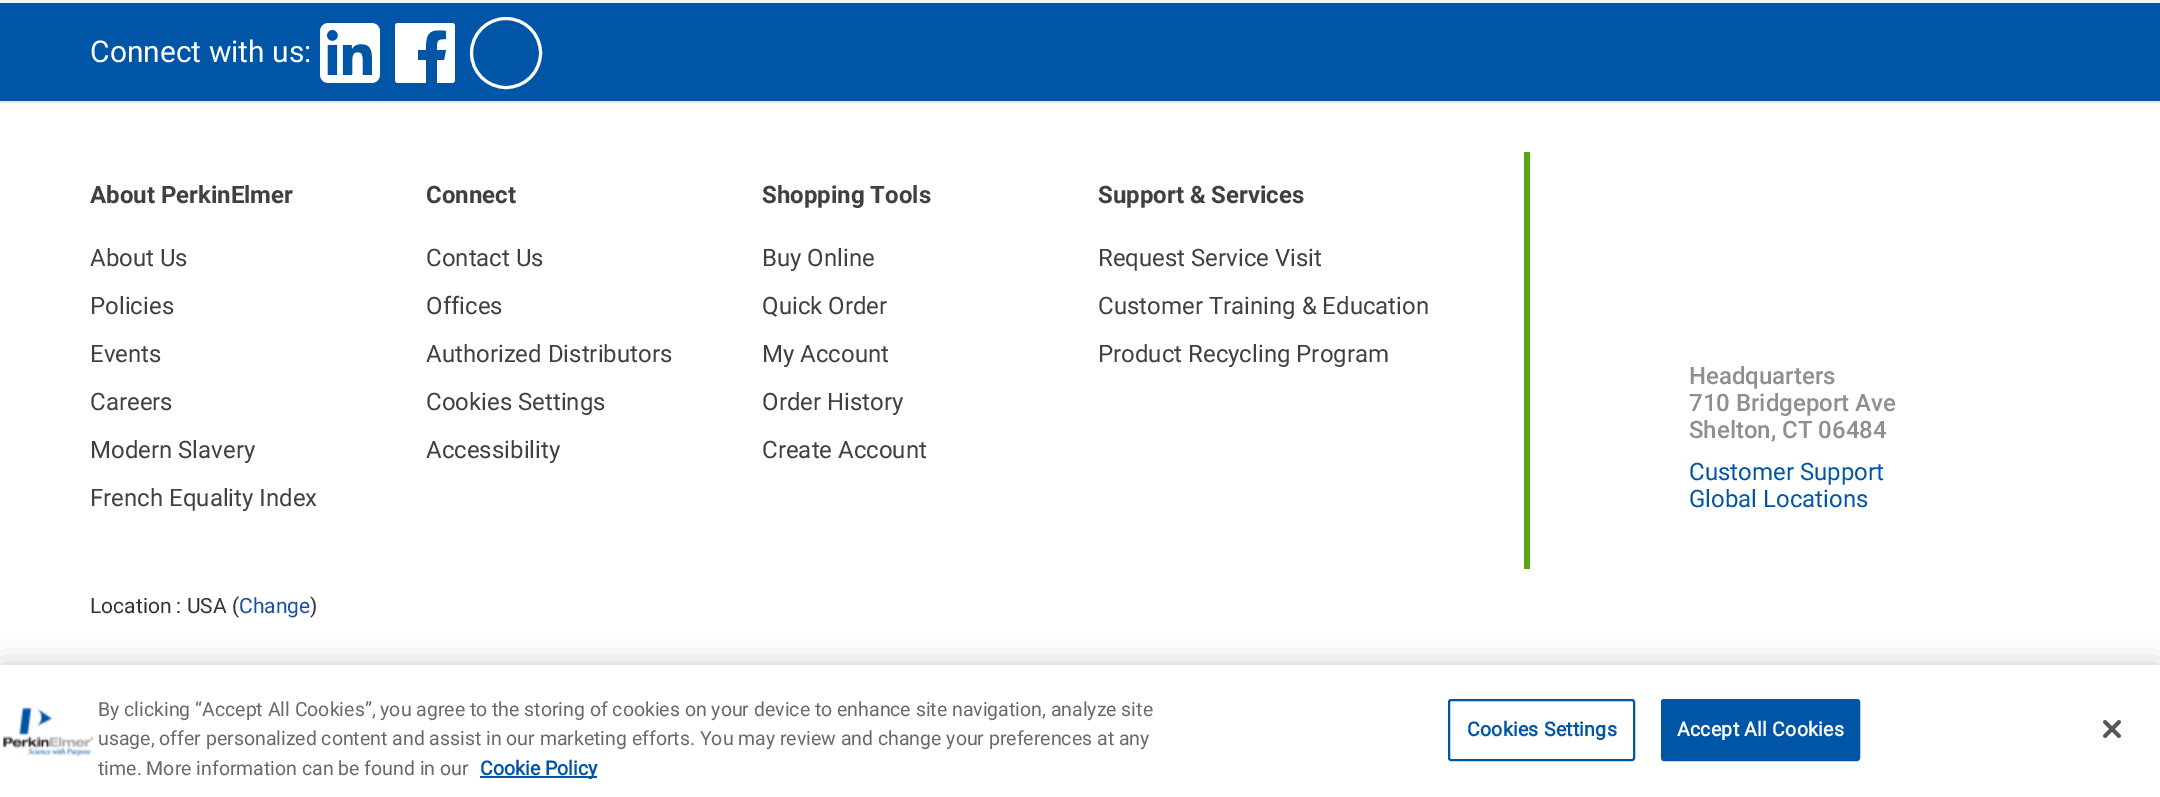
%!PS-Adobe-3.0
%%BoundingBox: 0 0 2160 797
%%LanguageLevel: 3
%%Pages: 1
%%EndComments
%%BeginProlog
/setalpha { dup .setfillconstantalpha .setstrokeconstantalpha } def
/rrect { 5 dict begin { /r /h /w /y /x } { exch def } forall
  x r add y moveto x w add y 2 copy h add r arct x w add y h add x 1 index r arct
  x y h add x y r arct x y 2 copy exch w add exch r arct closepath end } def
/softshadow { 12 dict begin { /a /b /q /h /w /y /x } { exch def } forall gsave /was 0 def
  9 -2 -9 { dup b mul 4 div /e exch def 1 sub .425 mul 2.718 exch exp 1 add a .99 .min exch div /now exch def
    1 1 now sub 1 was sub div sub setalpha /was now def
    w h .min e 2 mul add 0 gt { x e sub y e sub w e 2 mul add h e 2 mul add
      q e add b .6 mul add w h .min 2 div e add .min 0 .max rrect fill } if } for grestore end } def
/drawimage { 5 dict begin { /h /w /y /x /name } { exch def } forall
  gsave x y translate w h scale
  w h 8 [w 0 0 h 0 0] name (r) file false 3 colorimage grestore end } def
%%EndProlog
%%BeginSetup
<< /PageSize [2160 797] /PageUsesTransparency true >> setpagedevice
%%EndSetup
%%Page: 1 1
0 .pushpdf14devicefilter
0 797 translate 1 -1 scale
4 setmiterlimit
0.961 setgray
0 0 2160 797 rectfill
0 0.333 0.651 setrgbcolor
0 3 2160 98 rectfill
(images/1.raw) 320 23 60 60 drawimage
1 setgray
395 23 60 60 3 rrect fill
0 0.333 0.651 setrgbcolor
newpath 444 60 moveto 437 60 lineto 437 83 lineto 426 83 lineto 426 60 lineto 418 60 lineto 418 50 lineto 426 50 lineto 426 33 429 29 446 31 curveto 446 39 lineto 436 39 437 41 437 50 curveto 446 50 lineto closepath fill
1 setgray
3 setlinewidth
newpath 506 53 34.5 0 360 arc closepath stroke
0 103 2160 562 rectfill
0.898 setgray
0 101 2160 2 rectfill
0.345 0.651 0.094 setrgbcolor
1524 152 6 417 rectfill
0 setgray
0 665 2160 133 0 13.5 0.2 softshadow
1 setgray
0 665 2160 132 rectfill
(images/2.raw) 3 707 91 50 drawimage
0 0.333 0.651 setrgbcolor
480 776 117 2 rectfill
2 setlinewidth
1449 700 185 60 2 rrect stroke
1662 700 197 60 2 rrect gsave fill grestore
stroke
(images/3.raw) 2103 720 18 18 drawimage
/Roboto-Regular [30 0 0 -30 0 0] selectfont
1 setgray
90 62 moveto (Connect with us:) show
/Roboto-Bold [24 0 0 -24 0 0] selectfont
0.251 setgray
90 203 moveto (About PerkinElmer) show
/Roboto-Regular [24 0 0 -24 0 0] selectfont
90 266 moveto (About Us) show
90 314 moveto (Policies) show
90 362 moveto (Events) show
90 410 moveto (Careers) show
90 458 moveto (Modern Slavery) show
90 506 moveto (French Equality Index) show
/Roboto-Bold [24 0 0 -24 0 0] selectfont
426 203 moveto (Connect) show
/Roboto-Regular [24 0 0 -24 0 0] selectfont
426 266 moveto (Contact Us) show
426 314 moveto (Offices) show
426 362 moveto (Authorized Distributors) show
426 410 moveto (Cookies Settings) show
426 458 moveto (Accessibility) show
/Roboto-Bold [24 0 0 -24 0 0] selectfont
762 203 moveto (Shopping Tools) show
/Roboto-Regular [24 0 0 -24 0 0] selectfont
762 266 moveto (Buy Online) show
762 314 moveto (Quick Order) show
762 362 moveto (My Account) show
762 410 moveto (Order History) show
762 458 moveto (Create Account) show
/Roboto-Bold [24 0 0 -24 0 0] selectfont
1098 203 moveto (Support & Services) show
/Roboto-Regular [24 0 0 -24 0 0] selectfont
1098 266 moveto (Request Service Visit) show
1098 314 moveto (Customer Training & Education) show
1098 362 moveto (Product Recycling Program) show
/Roboto-Medium [24 0 0 -24 0 0] selectfont
0.561 setgray
1689 384 moveto (Headquarters) show
1689 411 moveto (710 Bridgeport Ave) show
1689 438 moveto (Shelton, CT 06484) show
/Roboto-Regular [24 0 0 -24 0 0] selectfont
0 0.333 0.651 setrgbcolor
1689 480 moveto (Customer Support) show
1689 507 moveto (Global Locations) show
/Roboto-Regular [21 0 0 -21 0 0] selectfont
0.2 setgray
90 613 moveto (Location : USA \() show
0.106 0.306 0.643 setrgbcolor
239 613 moveto (Change) show
0.2 setgray
310 613 moveto (\)) show
/Roboto-Regular [19.5 0 0 -19.5 0 0] selectfont
0.412 setgray
98 716 moveto (By clicking “Accept All Cookies”, you agree to the storing of cookies on your device to enhance site navigation, analyze site) show
98 745 moveto (usage, offer personalized content and assist in our marketing efforts. You may review and change your preferences at any) show
98 775 moveto (time. More information can be found in our) show
/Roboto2-Bold [19.5 0 0 -19.5 0 0] selectfont
0 0.333 0.651 setrgbcolor
480 775 moveto (Cookie Policy) show
1467 736 moveto 0.25 0 (Cookies Settings) ashow
1 setgray
1677 736 moveto 0.25 0 (Accept All Cookies) ashow
.poppdf14devicefilter showpage
%%EOF
